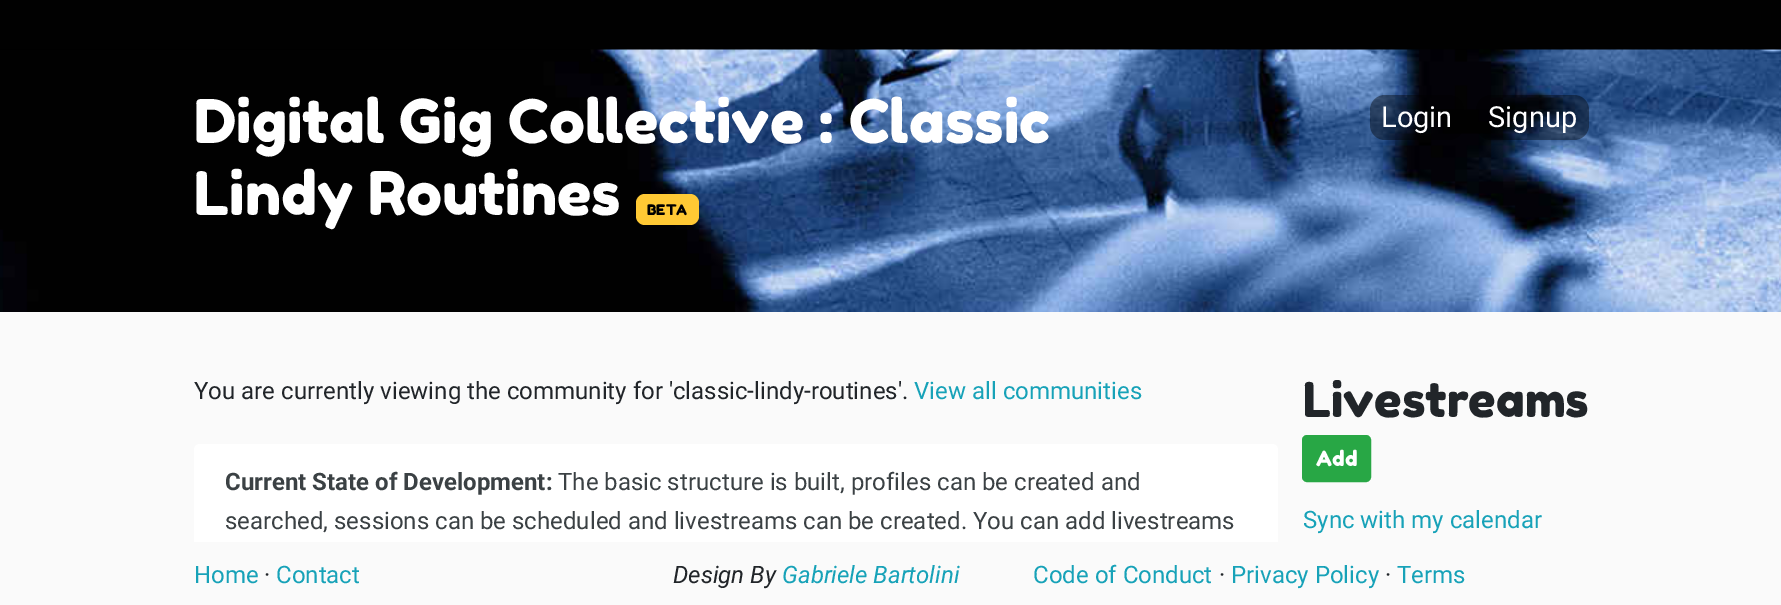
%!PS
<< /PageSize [1781 605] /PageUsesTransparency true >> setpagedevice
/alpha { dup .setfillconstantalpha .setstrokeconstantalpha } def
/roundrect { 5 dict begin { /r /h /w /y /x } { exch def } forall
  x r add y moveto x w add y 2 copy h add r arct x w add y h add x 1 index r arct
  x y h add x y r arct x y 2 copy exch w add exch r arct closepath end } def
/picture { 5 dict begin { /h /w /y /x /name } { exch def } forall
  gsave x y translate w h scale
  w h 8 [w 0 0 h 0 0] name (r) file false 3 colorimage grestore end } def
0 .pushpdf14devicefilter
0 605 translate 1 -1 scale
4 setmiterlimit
0.98 setgray
0 0 1781 605 rectfill
0.004 setgray
0 0 1781 50 rectfill
(img1.rgb) 0 49 1781 263 picture
/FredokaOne-Regular [60 0 0 -60 0 0] selectfont
1 setgray
194 143 moveto (Digital Gig Collective : Classic) show
194 215 moveto (Lindy Routines) show
1 0.788 0.204 setrgbcolor
636 194 63 31 9 roundrect fill
/FredokaOne-Regular [14.5 0 0 -14.5 0 0] selectfont
0 setgray
647 215 moveto (BETA) show
0.4 alpha
1370 95 94 45 15 roundrect fill
/Roboto-Regular [29 0 0 -29 0 0] selectfont
1 alpha
1 setgray
1381 127 moveto (Login) show
0.4 alpha
0 setgray
1476 95 113 45 15 roundrect fill
1 alpha
1 setgray
1488 127 moveto (Signup) show
/Roboto-Regular [24 0 0 -24 0 0] selectfont
0.129 0.145 0.161 setrgbcolor
194 399 moveto (You are currently viewing the community for 'classic-lindy-routines'.) show
0.09 0.635 0.722 setrgbcolor
914 399 moveto (View all communities) show
1 setgray
newpath 200 444 moveto 1272 444 lineto 1275.5 444 1278 446.5 1278 450 curveto 1278 542 lineto 194 542 lineto 194 450 lineto 194 446.5 196.5 444 200 444 curveto closepath fill
/Roboto-Bold [24 0 0 -24 0 0] selectfont
0.231 0.255 0.267 setrgbcolor
225 490 moveto (Current State of Development:) show
/Roboto-Regular [24 0 0 -24 0 0] selectfont
558 490 moveto (The basic structure is built, profiles can be created and) show
225 529 moveto (searched, sessions can be scheduled and livestreams can be created. You can add livestreams) show
/FredokaOne-Regular [48 0 0 -48 0 0] selectfont
0.129 0.145 0.161 setrgbcolor
1303 417 moveto (Livestreams) show
0.157 0.655 0.271 setrgbcolor
1303 436 67 45 4 roundrect gsave fill grestore
2 setlinewidth
stroke
/FredokaOne-Regular [21 0 0 -21 0 0] selectfont
1 setgray
1316 466 moveto (Add) show
/Roboto-Regular [24 0 0 -24 0 0] selectfont
0.09 0.635 0.722 setrgbcolor
1303 528 moveto (Sync with my calendar) show
194 583 moveto (Home) show
0.129 0.145 0.161 setrgbcolor
264 583 moveto (·) show
0.09 0.635 0.722 setrgbcolor
276 583 moveto (Contact) show
/Roboto-Italic [24 0 0 -24 0 0] selectfont
0.129 0.145 0.161 setrgbcolor
673 583 moveto (Design By) show
0.09 0.635 0.722 setrgbcolor
782 583 moveto (Gabriele Bartolini) show
/Roboto-Regular [24 0 0 -24 0 0] selectfont
1033 583 moveto (Code of Conduct) show
0.129 0.145 0.161 setrgbcolor
1219 583 moveto (·) show
0.09 0.635 0.722 setrgbcolor
1231 583 moveto (Privacy Policy) show
0.129 0.145 0.161 setrgbcolor
1385 583 moveto (·) show
0.09 0.635 0.722 setrgbcolor
1397 583 moveto (Terms) show
.poppdf14devicefilter showpage
